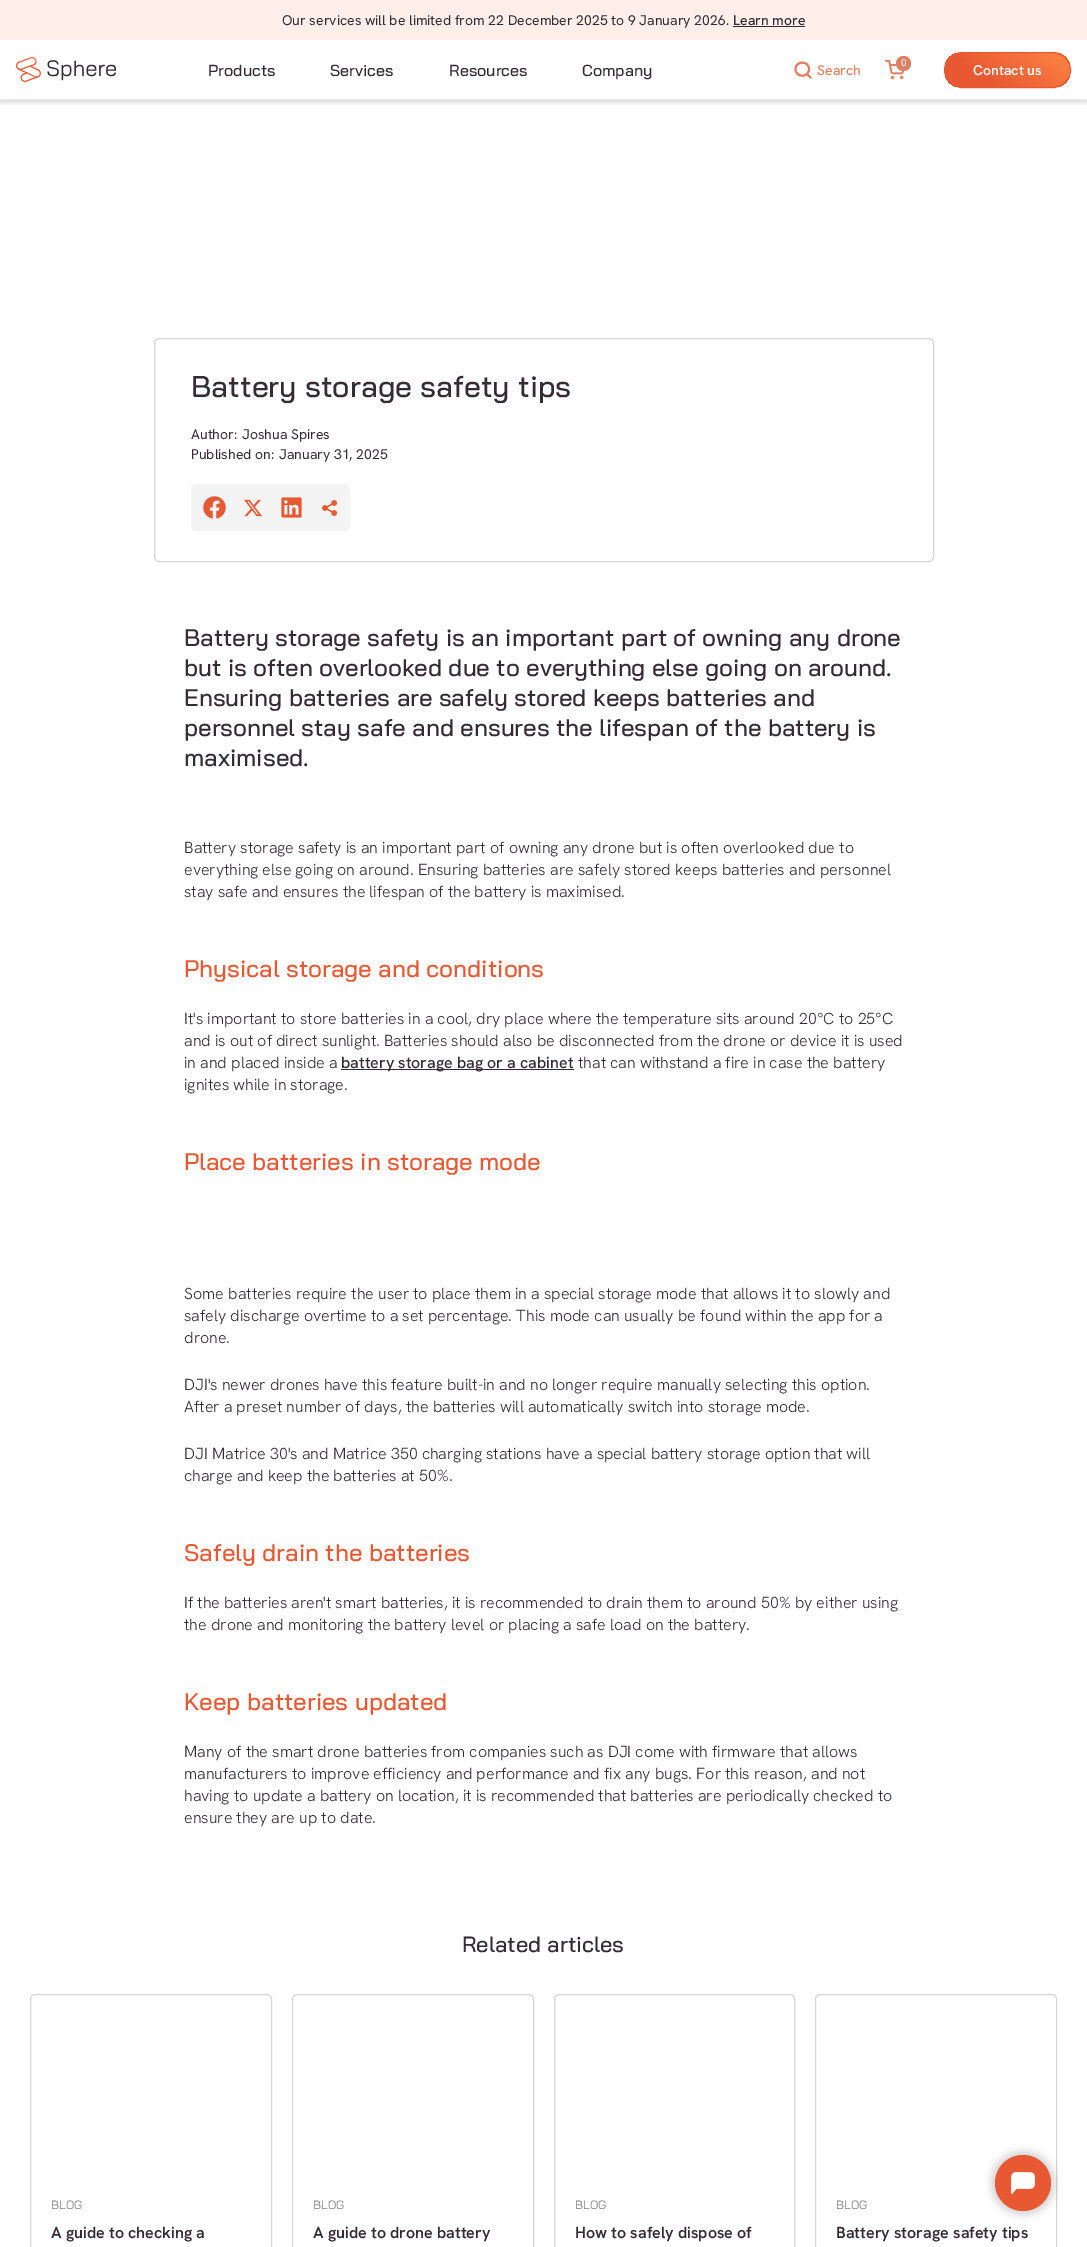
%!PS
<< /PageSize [1087 2247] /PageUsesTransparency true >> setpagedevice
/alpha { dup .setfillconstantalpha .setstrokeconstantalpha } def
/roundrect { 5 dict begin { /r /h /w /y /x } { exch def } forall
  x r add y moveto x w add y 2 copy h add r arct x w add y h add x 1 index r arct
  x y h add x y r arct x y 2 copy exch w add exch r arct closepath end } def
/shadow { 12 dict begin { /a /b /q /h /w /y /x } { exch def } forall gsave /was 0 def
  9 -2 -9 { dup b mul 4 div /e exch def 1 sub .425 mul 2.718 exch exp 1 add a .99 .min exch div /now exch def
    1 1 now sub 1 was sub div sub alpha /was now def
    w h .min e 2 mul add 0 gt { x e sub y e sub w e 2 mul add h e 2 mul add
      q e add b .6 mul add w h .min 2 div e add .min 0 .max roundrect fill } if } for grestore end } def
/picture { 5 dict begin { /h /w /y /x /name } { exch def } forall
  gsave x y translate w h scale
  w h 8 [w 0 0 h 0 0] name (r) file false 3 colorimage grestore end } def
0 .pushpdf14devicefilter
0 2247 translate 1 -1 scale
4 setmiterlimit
1 setgray
0 0 1087 2247 rectfill
gsave
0 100 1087 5 rectclip
0.2 0.173 0.192 setrgbcolor
0 2 1087 100 0 2.5 0.2 shadow
grestore
0.925 setgray
0 99 1087 1 rectfill
1 0.933 0.918 setrgbcolor
0 0 1087 40 rectfill
/HankenGrotesk-Regular [14 0 0 -14 0 0] selectfont
0.2 0.173 0.192 setrgbcolor
282 25 moveto (Our services will be limited from 22 December 2025 to 9 January 2026.) show
/HankenGrotesk-Medium [14 0 0 -14 0 0] selectfont
733 25 moveto (Learn more) show
733 26 72 1 rectfill
(img1.rgb) 16 57 100 25 picture
/BaiJamjuree-Medium [16 0 0 -16 0 0] selectfont
208 76 moveto (Products) show
330 76 moveto (Services) show
449 76 moveto (Resources) show
582 76 moveto (Company) show
(img2.rgb) 885 60 20 20 picture
0.871 0.502 0.392 setrgbcolor
newpath 903.5 63.5 7.5 0 360 arc closepath fill
/HankenGrotesk-Regular [10 0 0 -10 0 0] selectfont
1 setgray
901 66 moveto (0) show
0.871 0.502 0.392 setrgbcolor
2 setlinewidth
1 setlinecap
1 setlinejoin
newpath 810.5 77.5 moveto 807 74 lineto 809 69 moveto 809 78 795.5 78 795.5 69 curveto 795.5 60.5 809 60.5 809 69 curveto closepath stroke
/HankenGrotesk-Medium [14 0 0 -14 0 0] selectfont
817 75 moveto (Search) show
gsave
944 52 127 36 18 roundrect clip newpath
gsave newpath 945 53 moveto 1070 53 lineto 1070 87 lineto 945 87 lineto closepath clip newpath
<< /ShadingType 2 /ColorSpace /DeviceRGB /Coords [979 111 1036 29] /Extend [true true] /Function << /FunctionType 3 /Domain [0 1] /Functions [<< /FunctionType 2 /Domain [0 1] /C0 [0.91 0.345 0.2] /C1 [0.91 0.345 0.2] /N 1 >> << /FunctionType 2 /Domain [0 1] /C0 [0.91 0.345 0.2] /C1 [1 0.522 0.263] /N 1 >>] /Bounds [0.3] /Encode [0 1 0 1] >> >> shfill grestore
grestore
0.91 0.345 0.2 setrgbcolor
1 setlinewidth
0 setlinecap
0 setlinejoin
944.5 52.5 126 35 17.5 roundrect stroke
/HankenGrotesk-SemiBold [14 0 0 -14 0 0] selectfont
1 setgray
973 75 moveto (Contact us) show
0.835 setgray
154.5 338.5 779 223 4.5 roundrect stroke
/BaiJamjuree-Medium [30 0 0 -30 0 0] selectfont
0.2 0.173 0.192 setrgbcolor
191 397 moveto (Battery storage safety tips) show
/HankenGrotesk-Regular [14 0 0 -14 0 0] selectfont
191 439 moveto (Author:) show
242 439 moveto (Joshua Spires) show
191 459 moveto (Published on:) show
279 459 moveto (January 31, 2025) show
0.957 setgray
191 484 159 47 5 roundrect fill
(img3.rgb) 203 496 23 23 picture
(img4.rgb) 244 499 18 18 picture
(img5.rgb) 281 497 21 21 picture
(img6.rgb) 322 500 15 16 picture
/BaiJamjuree-Medium [24 0 0 -24 0 0] selectfont
0.2 0.173 0.192 setrgbcolor
184 646 moveto (Battery storage safety is an important part of owning any drone) show
184 676 moveto (but is often overlooked due to everything else going on around.) show
184 706 moveto (Ensuring batteries are safely stored keeps batteries and) show
184 736 moveto (personnel stay safe and ensures the lifespan of the battery is) show
184 766 moveto (maximised.) show
/HankenGrotesk-Light [16 0 0 -16 0 0] selectfont
184 853 moveto (Battery storage safety is an important part of owning any drone but is often overlooked due to) show
184 875 moveto (everything else going on around. Ensuring batteries are safely stored keeps batteries and personnel) show
184 897 moveto (stay safe and ensures the lifespan of the battery is maximised.) show
/BaiJamjuree-Medium [24 0 0 -24 0 0] selectfont
0.91 0.345 0.2 setrgbcolor
184 977 moveto (Physical storage and conditions) show
/HankenGrotesk-Light [16 0 0 -16 0 0] selectfont
0.2 0.173 0.192 setrgbcolor
184 1024 moveto (It's important to store batteries in a cool, dry place where the temperature sits around 20°C to 25°C) show
184 1046 moveto (and is out of direct sunlight. Batteries should also be disconnected from the drone or device it is used) show
184 1068 moveto (in and placed inside a) show
341 1069 233 1 rectfill
/HankenGrotesk-Medium [16 0 0 -16 0 0] selectfont
341 1068 moveto (battery storage bag or a cabinet) show
/HankenGrotesk-Light [16 0 0 -16 0 0] selectfont
578 1068 moveto (that can withstand a fire in case the battery) show
184 1090 moveto (ignites while in storage.) show
/BaiJamjuree-Medium [24 0 0 -24 0 0] selectfont
0.91 0.345 0.2 setrgbcolor
184 1170 moveto (Place batteries in storage mode) show
/HankenGrotesk-Light [16 0 0 -16 0 0] selectfont
0.2 0.173 0.192 setrgbcolor
184 1299 moveto (Some batteries require the user to place them in a special storage mode that allows it to slowly and) show
184 1321 moveto (safely discharge overtime to a set percentage. This mode can usually be found within the app for a) show
184 1343 moveto (drone.) show
184 1390 moveto (DJI's newer drones have this feature built-in and no longer require manually selecting this option.) show
184 1412 moveto (After a preset number of days, the batteries will automatically switch into storage mode.) show
184 1459 moveto (DJI Matrice 30's and Matrice 350 charging stations have a special battery storage option that will) show
184 1481 moveto (charge and keep the batteries at 50%.) show
/BaiJamjuree-Medium [24 0 0 -24 0 0] selectfont
0.91 0.345 0.2 setrgbcolor
184 1561 moveto (Safely drain the batteries) show
/HankenGrotesk-Light [16 0 0 -16 0 0] selectfont
0.2 0.173 0.192 setrgbcolor
184 1608 moveto (If the batteries aren't smart batteries, it is recommended to drain them to around 50% by either using) show
184 1630 moveto (the drone and monitoring the battery level or placing a safe load on the battery.) show
/BaiJamjuree-Medium [24 0 0 -24 0 0] selectfont
0.91 0.345 0.2 setrgbcolor
184 1710 moveto (Keep batteries updated) show
/HankenGrotesk-Light [16 0 0 -16 0 0] selectfont
0.2 0.173 0.192 setrgbcolor
184 1757 moveto (Many of the smart drone batteries from companies such as DJI come with firmware that allows) show
184 1779 moveto (manufacturers to improve efficiency and performance and fix any bugs. For this reason, and not) show
184 1801 moveto (having to update a battery on location, it is recommended that batteries are periodically checked to) show
184 1823 moveto (ensure they are up to date.) show
/BaiJamjuree-Medium [22 0 0 -22 0 0] selectfont
462 1952 moveto (Related articles) show
0.835 setgray
30.5 1994.5 241 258 4.5 roundrect stroke
/BaiJamjuree-Regular [12 0 0 -12 0 0] selectfont
0.514 0.506 0.51 setrgbcolor
51 2209 moveto (BLOG) show
/HankenGrotesk-SemiBold [16 0 0 -16 0 0] selectfont
0.2 0.173 0.192 setrgbcolor
51 2238 moveto (A guide to checking a) show
0.835 setgray
292.5 1994.5 241 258 4.5 roundrect stroke
/BaiJamjuree-Regular [12 0 0 -12 0 0] selectfont
0.514 0.506 0.51 setrgbcolor
313 2209 moveto (BLOG) show
/HankenGrotesk-SemiBold [16 0 0 -16 0 0] selectfont
0.2 0.173 0.192 setrgbcolor
313 2238 moveto (A guide to drone battery) show
0.835 setgray
554.5 1994.5 240 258 4.5 roundrect stroke
/BaiJamjuree-Regular [12 0 0 -12 0 0] selectfont
0.514 0.506 0.51 setrgbcolor
575 2209 moveto (BLOG) show
/HankenGrotesk-SemiBold [16 0 0 -16 0 0] selectfont
0.2 0.173 0.192 setrgbcolor
575 2238 moveto (How to safely dispose of) show
0.835 setgray
815.5 1994.5 241 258 4.5 roundrect stroke
/BaiJamjuree-Regular [12 0 0 -12 0 0] selectfont
0.514 0.506 0.51 setrgbcolor
836 2209 moveto (BLOG) show
/HankenGrotesk-SemiBold [16 0 0 -16 0 0] selectfont
0.2 0.173 0.192 setrgbcolor
836 2238 moveto (Battery storage safety tips) show
0 setgray
991 2151 64 64 32 4 0.16 shadow
0.91 0.345 0.2 setrgbcolor
newpath 1023 2183 28 0 360 arc closepath fill
(img7.rgb) 1011 2172 24 22 picture
.poppdf14devicefilter showpage
